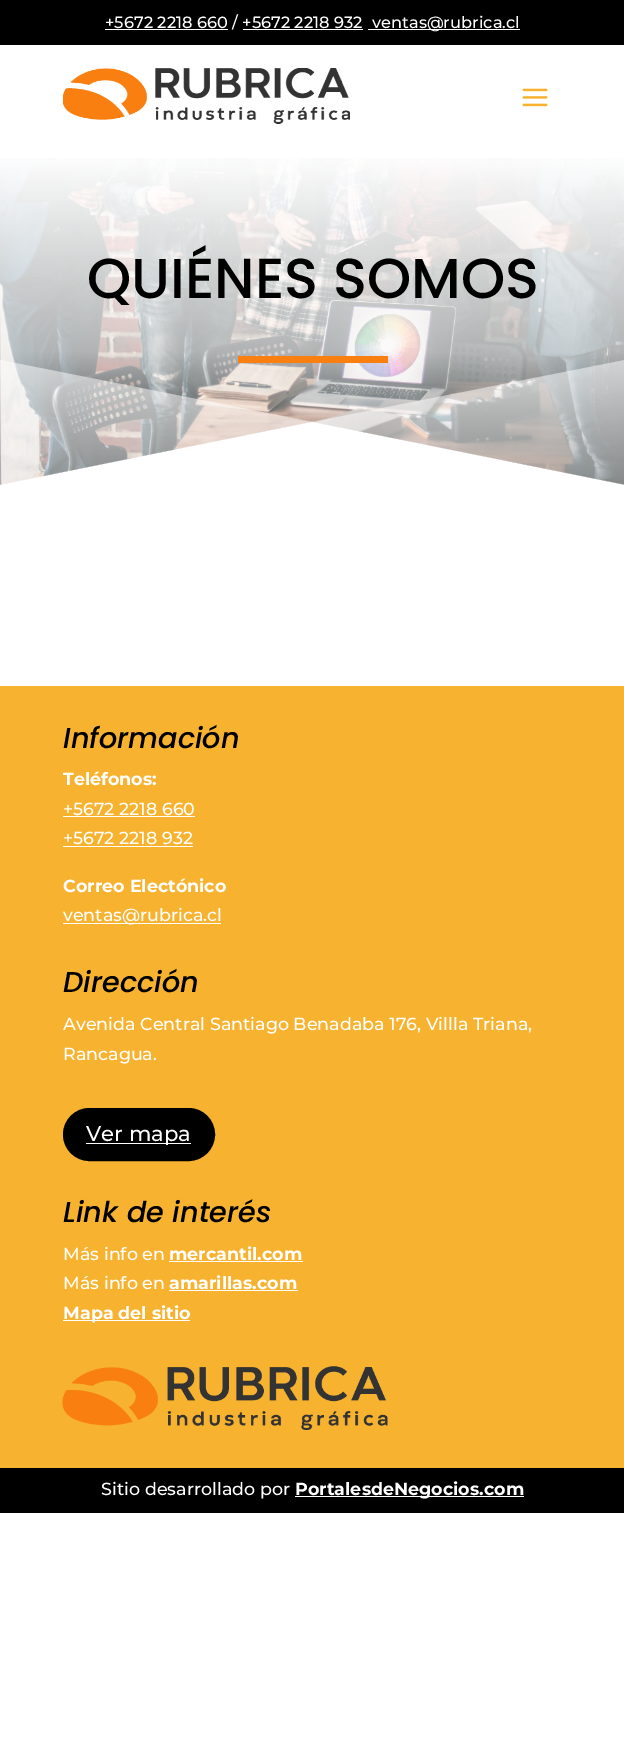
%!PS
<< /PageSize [624 1745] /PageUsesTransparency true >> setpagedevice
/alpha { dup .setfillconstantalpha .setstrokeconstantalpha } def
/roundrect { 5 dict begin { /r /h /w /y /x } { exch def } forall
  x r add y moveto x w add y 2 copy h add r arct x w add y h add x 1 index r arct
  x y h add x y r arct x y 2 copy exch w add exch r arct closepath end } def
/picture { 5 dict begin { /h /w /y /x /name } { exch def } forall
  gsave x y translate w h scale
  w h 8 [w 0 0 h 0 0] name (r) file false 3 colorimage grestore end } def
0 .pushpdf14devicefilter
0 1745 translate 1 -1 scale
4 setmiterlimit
1 setgray
0 0 624 1745 rectfill
0 setgray
0 0 624 45 rectfill
1 setgray
105 29 123 1 rectfill
/Montserrat-Medium [16.25 0 0 -16.25 0 0] selectfont
105 28 moveto (+5672 2218 660 / +5672 2218 932) show
368 29 152 1 rectfill
372 28 moveto (ventas@rubrica.cl) show
243 29 120 1 rectfill
(img1.rgb) 63 68 287 56 picture
(img2.rgb) 522 88 26 19 picture
(img3.rgb) 0 158 624 327 picture
/Poppins-Medium [56.25 0 0 -56.25 0 0] selectfont
0 setgray
87 298 moveto (QUIÉNES SOMOS) show
0.5 alpha
1 setgray
newpath 0 485 moveto 312 422 lineto 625 485 lineto 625 360 lineto 312 422 lineto 0 360 lineto closepath fill
1 alpha
0.973 0.498 0.063 setrgbcolor
238 356 150 7 rectfill
1 setgray
newpath 0 485 moveto 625 485 lineto 312 422 lineto closepath fill
0.969 0.702 0.184 setrgbcolor
0 686 624 782 rectfill
/Poppins-MediumItalic [28.75 0 0 -28.75 0 0] selectfont
0 setgray
63 748 moveto (Información) show
/Montserrat-Bold [17.5 0 0 -17.5 0 0] selectfont
1 setgray
63 785 moveto (Teléfonos:) show
/Montserrat-Medium [17.5 0 0 -17.5 0 0] selectfont
63 815 moveto (+5672 2218 660) show
63 816 132 1 rectfill
63 844 moveto (+5672 2218 932) show
63 846 130 1 rectfill
/Montserrat-Bold [17.5 0 0 -17.5 0 0] selectfont
63 892 moveto (Correo Electónico) show
63 923 158 1 rectfill
/Montserrat-Medium [17.5 0 0 -17.5 0 0] selectfont
63 921 moveto (ventas@rubrica.cl) show
/Poppins-MediumItalic [28.75 0 0 -28.75 0 0] selectfont
0 setgray
63 992 moveto (Dirección) show
/Montserrat-Medium [17.5 0 0 -17.5 0 0] selectfont
1 setgray
63 1030 moveto (Avenida Central Santiago Benadaba 176, Villla Triana,) show
63 1060 moveto (Rancagua.) show
0 setgray
64.5 1109.5 149 50 25 roundrect gsave fill grestore
3 setlinewidth
stroke
1 setgray
86 1143 105 1 rectfill
/Montserrat-Medium [21.25 0 0 -21.25 0 0] selectfont
86 1141 moveto (Ver mapa) show
/Poppins-MediumItalic [28.75 0 0 -28.75 0 0] selectfont
0 setgray
63 1222 moveto (Link de interés) show
/Montserrat-Medium [17.5 0 0 -17.5 0 0] selectfont
1 setgray
63 1260 moveto (Más info en) show
/Montserrat-Bold [17.5 0 0 -17.5 0 0] selectfont
169 1260 moveto (mercantil.com) show
169 1261 134 1 rectfill
/Montserrat-Medium [17.5 0 0 -17.5 0 0] selectfont
63 1289 moveto (Más info en) show
/Montserrat-Bold [17.5 0 0 -17.5 0 0] selectfont
169 1289 moveto (amarillas.com) show
169 1290 129 1 rectfill
63 1320 127 1 rectfill
63 1319 moveto (Mapa del sitio) show
(img4.rgb) 62 1366 326 64 picture
0 setgray
0 1468 624 45 rectfill
/Montserrat-Medium [17.5 0 0 -17.5 0 0] selectfont
1 setgray
101 1495 moveto (Sitio desarrollado por) show
295 1496 229 1 rectfill
/Montserrat-Bold [17.5 0 0 -17.5 0 0] selectfont
295 1495 moveto (PortalesdeNegocios.com) show
.poppdf14devicefilter showpage
